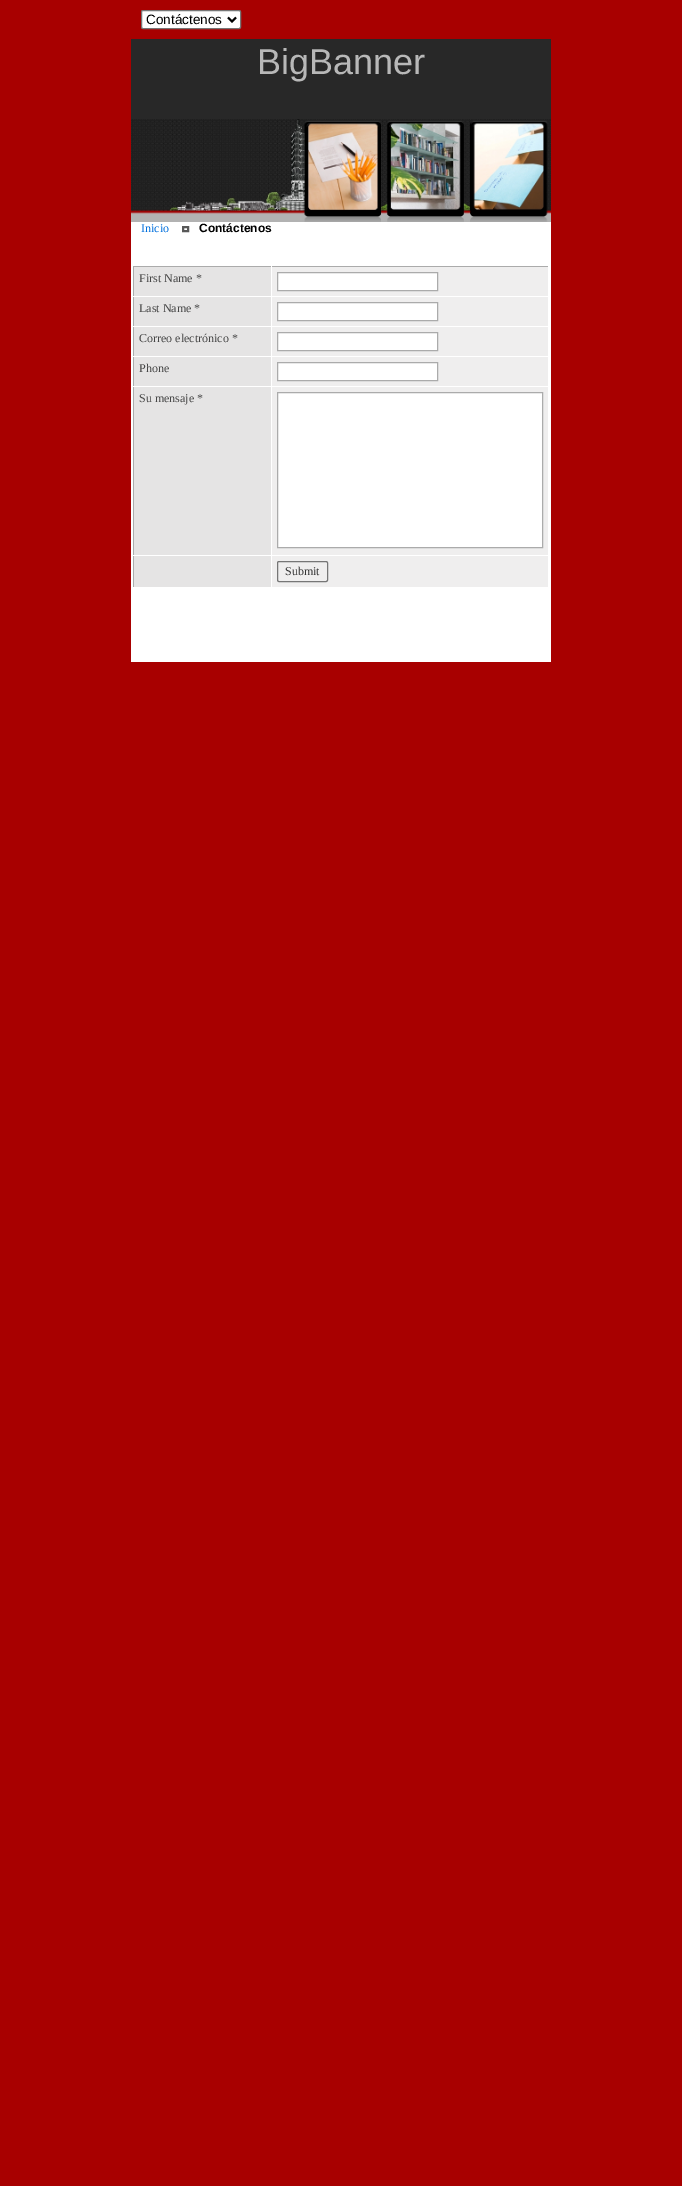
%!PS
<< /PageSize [682 2186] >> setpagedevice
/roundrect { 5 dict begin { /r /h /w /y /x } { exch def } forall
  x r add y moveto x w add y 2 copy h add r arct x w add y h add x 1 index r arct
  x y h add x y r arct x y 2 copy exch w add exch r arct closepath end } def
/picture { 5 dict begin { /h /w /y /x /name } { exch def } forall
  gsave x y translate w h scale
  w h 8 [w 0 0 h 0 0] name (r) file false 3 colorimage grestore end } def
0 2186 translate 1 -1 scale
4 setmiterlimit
0.659 0 0 setrgbcolor
0 0 682 2186 rectfill
1 setgray
141.5 10.5 99 18 1.5 roundrect gsave fill grestore
0.463 setgray
stroke
0 setgray
2 setlinewidth
newpath 228 17.5 moveto 232 21.5 lineto 236 17.5 lineto stroke
/LiberationSans-Regular [13.5 0 0 -13.5 0 0] selectfont
146 24 moveto (Contáctenos) show
0.157 setgray
131 39 420 80 rectfill
/LiberationSans-Regular [36 0 0 -36 0 0] selectfont
0.722 setgray
257 74 moveto (BigBanner) show
(img1.rgb) 131 119 420 103 picture
1 setgray
131 222 420 440 rectfill
/LiberationSerif-Regular [12 0 0 -12 0 0] selectfont
0 0.435 0.867 setrgbcolor
141 232 moveto (Inicio) show
0.345 setgray
183 227 5 4 rectstroke
/LiberationSans-Bold [12 0 0 -12 0 0] selectfont
0 setgray
199 232 moveto (Contáctenos) show
0.671 setgray
133 266 416 1 rectfill
133 266 1 322 rectfill
0.898 0.894 0.894 setrgbcolor
134 267 137 29 rectfill
1 setgray
271 266 1 1 rectfill
133 296 1 1 rectfill
/LiberationSerif-Regular [12 0 0 -12 0 0] selectfont
0.275 setgray
139 282 moveto (First Name *) show
0.937 0.933 0.933 setrgbcolor
272 267 276 29 rectfill
1 setgray
548 266 1 1 rectfill
newpath 277.5 272.5 moveto 437.5 272.5 lineto 437.5 290.5 lineto 277.5 290.5 lineto closepath gsave fill grestore
0.671 setgray
1 setlinewidth
stroke
0.937 0.933 0.933 setrgbcolor
272 297 276 29 rectfill
0.898 0.894 0.894 setrgbcolor
134 297 137 29 rectfill
1 setgray
133 326 1 1 rectfill
0.275 setgray
139 312 moveto (Last Name *) show
1 setgray
newpath 277.5 302.5 moveto 437.5 302.5 lineto 437.5 320.5 lineto 277.5 320.5 lineto closepath gsave fill grestore
0.671 setgray
stroke
0.898 0.894 0.894 setrgbcolor
134 327 137 29 rectfill
1 setgray
133 356 1 1 rectfill
0.275 setgray
139 342 moveto (Correo electrónico *) show
0.937 0.933 0.933 setrgbcolor
272 327 276 29 rectfill
1 setgray
newpath 277.5 332.5 moveto 437.5 332.5 lineto 437.5 350.5 lineto 277.5 350.5 lineto closepath gsave fill grestore
0.671 setgray
stroke
0.937 0.933 0.933 setrgbcolor
272 357 276 29 rectfill
0.898 0.894 0.894 setrgbcolor
134 357 137 29 rectfill
1 setgray
133 386 1 1 rectfill
0.275 setgray
139 372 moveto (Phone) show
1 setgray
newpath 277.5 362.5 moveto 437.5 362.5 lineto 437.5 380.5 lineto 277.5 380.5 lineto closepath gsave fill grestore
0.671 setgray
stroke
0.898 0.894 0.894 setrgbcolor
134 387 137 168 rectfill
1 setgray
133 555 1 1 rectfill
0.275 setgray
139 402 moveto (Su mensaje *) show
0.937 0.933 0.933 setrgbcolor
272 387 276 168 rectfill
1 setgray
newpath 277.5 392.5 moveto 542.5 392.5 lineto 542.5 547.5 lineto 277.5 547.5 lineto closepath gsave fill grestore
0.671 setgray
stroke
0.937 0.933 0.933 setrgbcolor
272 556 276 31 rectfill
0.898 0.894 0.894 setrgbcolor
134 556 137 31 rectfill
1 setgray
133 587 1 1 rectfill
0.463 setgray
277.5 561.5 50 20 1.5 roundrect stroke
0.2 setgray
285 575 moveto (Submit) show
showpage
